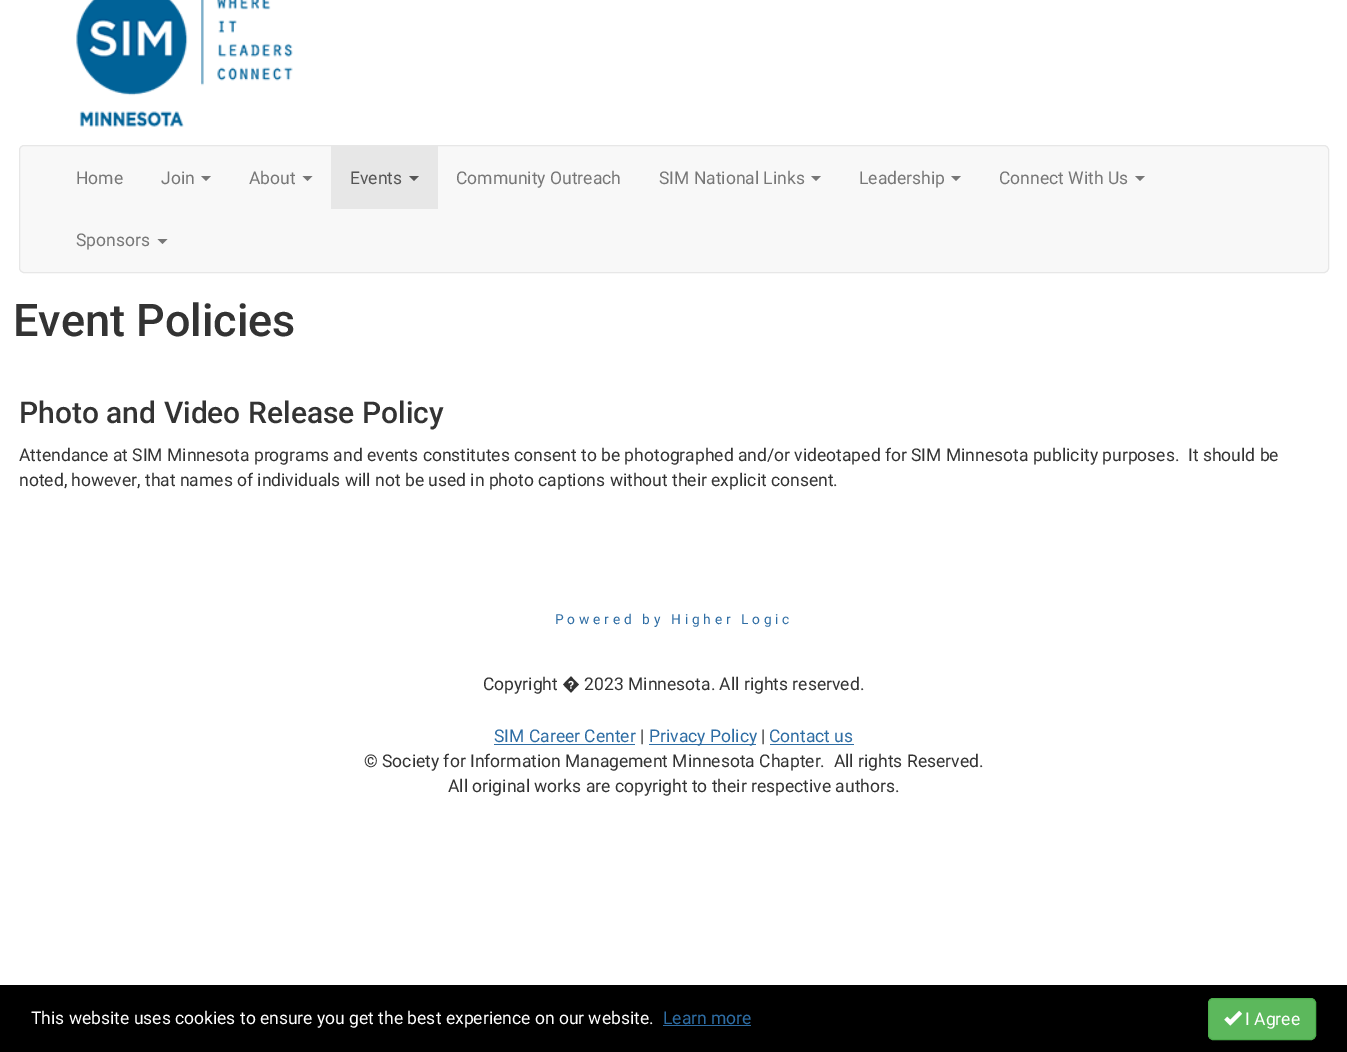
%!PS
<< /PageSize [1347 1052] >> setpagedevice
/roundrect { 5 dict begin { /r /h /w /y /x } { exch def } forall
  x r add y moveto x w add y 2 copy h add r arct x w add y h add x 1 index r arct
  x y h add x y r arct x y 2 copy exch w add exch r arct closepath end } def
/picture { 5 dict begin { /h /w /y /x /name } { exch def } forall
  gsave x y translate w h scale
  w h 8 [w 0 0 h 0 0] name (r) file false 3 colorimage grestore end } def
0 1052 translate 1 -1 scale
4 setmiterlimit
1 setgray
0 0 1347 1052 rectfill
(img1.rgb) 76 0 217 127 picture
0.973 setgray
19.5 145.5 1309 127 4.5 roundrect gsave fill grestore
0.906 setgray
stroke
/Roboto-Regular [17.5 0 0 -17.5 0 0] selectfont
0.467 setgray
76 184 moveto (Home) show
161 184 moveto (Join) show
newpath 201 176 moveto 211 176 lineto 206 181 lineto closepath fill
249 184 moveto (About) show
newpath 302.5 176 moveto 312.5 176 lineto 307.5 181 lineto closepath fill
0.906 setgray
331 146 107 63 rectfill
0.333 setgray
350 184 moveto (Events) show
newpath 409 176 moveto 419 176 lineto 414 181 lineto closepath fill
0.467 setgray
456 184 moveto (Community Outreach) show
659 184 moveto (SIM National Links) show
newpath 811 176 moveto 821 176 lineto 816 181 lineto closepath fill
859 184 moveto (Leadership) show
newpath 951 176 moveto 961 176 lineto 956 181 lineto closepath fill
999 184 moveto (Connect With Us) show
newpath 1135 176 moveto 1145 176 lineto 1140 181 lineto closepath fill
76 246 moveto (Sponsors) show
newpath 157.5 239 moveto 167.5 239 lineto 162.5 244 lineto closepath fill
/Roboto-Medium [45 0 0 -45 0 0] selectfont
0.2 setgray
13 336 moveto (Event Policies) show
/Roboto-Medium [30 0 0 -30 0 0] selectfont
19 423 moveto (Photo and Video Release Policy) show
/Roboto-Regular [17.5 0 0 -17.5 0 0] selectfont
19 461 moveto (Attendance at SIM Minnesota programs and events constitutes consent to be photographed and/or videotaped for SIM Minnesota publicity purposes.  It should be) show
19 486 moveto (noted, however, that names of individuals will not be used in photo captions without their explicit consent.) show
/Roboto-Regular [13.75 0 0 -13.75 0 0] selectfont
0.18 0.427 0.643 setrgbcolor
555 624 moveto 3.75 0 (Powered by Higher Logic) ashow
0 setgray
0 985 1347 67 rectfill
/Roboto-Regular [17.5 0 0 -17.5 0 0] selectfont
1 setgray
31 1024 moveto (This website uses cookies to ensure you get the best experience on our website.) show
0.18 0.427 0.643 setrgbcolor
663 1024 moveto (Learn more) show
663 1025 88 1 rectfill
0.361 0.722 0.361 setrgbcolor
1208.5 998.5 107 41 4.5 roundrect gsave fill grestore
0.298 0.682 0.298 setrgbcolor
stroke
(img2.rgb) 1224 1010 18 16 picture
1 setgray
1245 1025 moveto (I Agree) show
0.2 setgray
483 690 moveto (Copyright � 2023 Minnesota. All rights reserved.) show
0.18 0.427 0.643 setrgbcolor
494 742 moveto (SIM Career Center) show
494 744 141 1 rectfill
0.2 setgray
640 742 moveto (|) show
0.18 0.427 0.643 setrgbcolor
649 744 107 1 rectfill
649 742 moveto (Privacy Policy) show
0.2 setgray
761 742 moveto (|) show
0.18 0.427 0.643 setrgbcolor
769 742 moveto (Contact us) show
770 744 84 1 rectfill
0.2 setgray
364 767 moveto (© Society for Information Management Minnesota Chapter.  All rights Reserved.) show
448 792 moveto (All original works are copyright to their respective authors.) show
showpage
